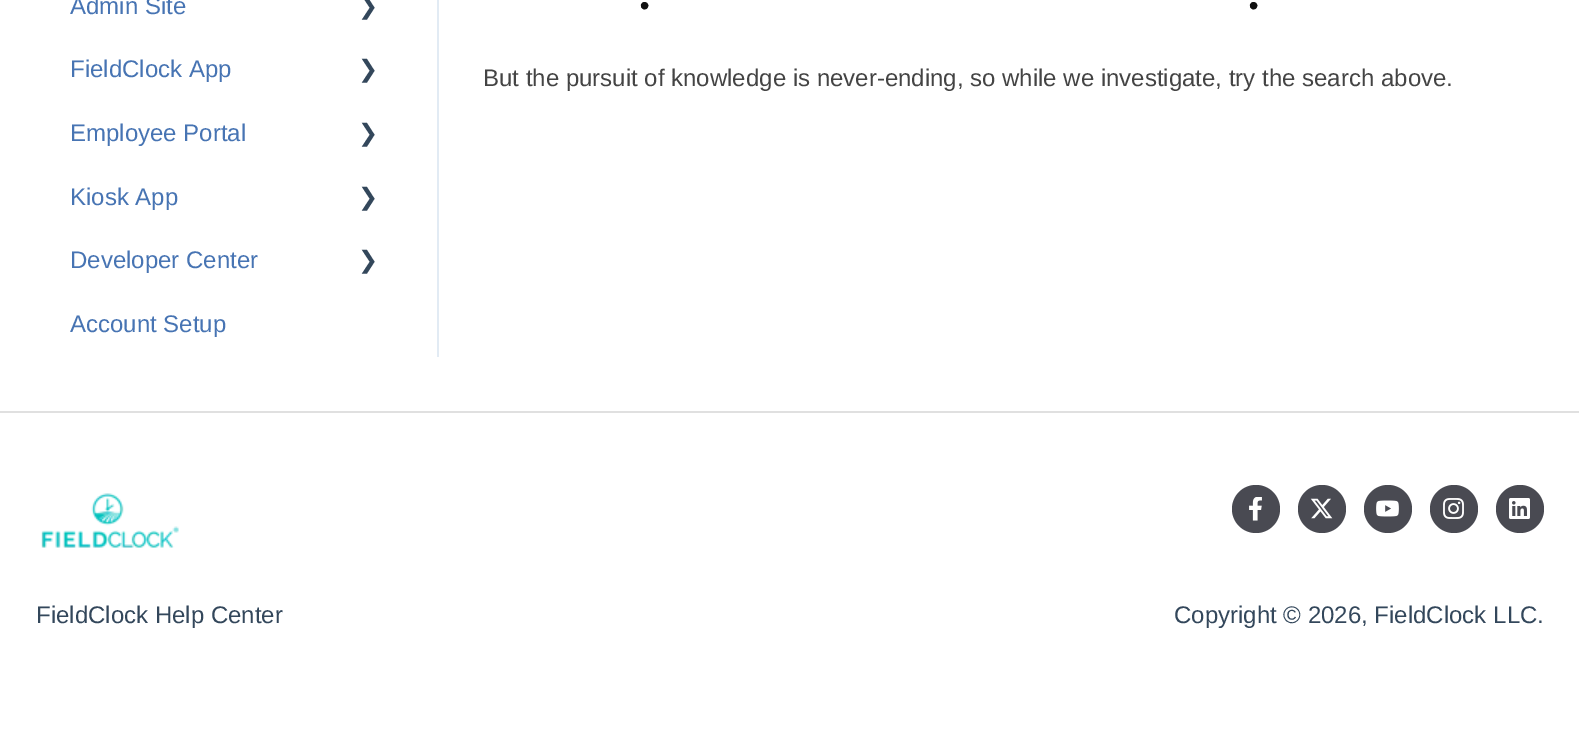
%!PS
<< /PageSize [1579 737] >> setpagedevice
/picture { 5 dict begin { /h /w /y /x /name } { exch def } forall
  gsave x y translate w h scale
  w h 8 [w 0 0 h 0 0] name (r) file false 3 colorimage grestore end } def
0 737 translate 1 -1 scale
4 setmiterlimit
1 setgray
0 0 1579 737 rectfill
0.886 0.922 0.957 setrgbcolor
437 0 2 357 rectfill
/LiberationSans-Regular [24 0 0 -24 0 0] selectfont
0.278 0.455 0.702 setrgbcolor
70 14 moveto (Admin Site) show
/DejaVuSans-Regular [24 0 0 -24 0 0] selectfont
0.2 0.278 0.357 setrgbcolor
358 14 moveto (❯) show
/LiberationSans-Regular [24 0 0 -24 0 0] selectfont
0.278 0.455 0.702 setrgbcolor
70 77 moveto (FieldClock App) show
/DejaVuSans-Regular [24 0 0 -24 0 0] selectfont
0.2 0.278 0.357 setrgbcolor
358 77 moveto (❯) show
/LiberationSans-Regular [24 0 0 -24 0 0] selectfont
0.278 0.455 0.702 setrgbcolor
70 141 moveto (Employee Portal) show
/DejaVuSans-Regular [24 0 0 -24 0 0] selectfont
0.2 0.278 0.357 setrgbcolor
358 141 moveto (❯) show
/LiberationSans-Regular [24 0 0 -24 0 0] selectfont
0.278 0.455 0.702 setrgbcolor
70 205 moveto (Kiosk App) show
/DejaVuSans-Regular [24 0 0 -24 0 0] selectfont
0.2 0.278 0.357 setrgbcolor
358 205 moveto (❯) show
/LiberationSans-Regular [24 0 0 -24 0 0] selectfont
0.278 0.455 0.702 setrgbcolor
70 268 moveto (Developer Center) show
/DejaVuSans-Regular [24 0 0 -24 0 0] selectfont
0.2 0.278 0.357 setrgbcolor
358 268 moveto (❯) show
/LiberationSans-Regular [24 0 0 -24 0 0] selectfont
0.278 0.455 0.702 setrgbcolor
70 332 moveto (Account Setup) show
/Inter-SemiBold [48 0 0 -48 0 0] selectfont
0.067 setgray
637 9 moveto (.) show
1246 9 moveto (.) show
/LiberationSans-Regular [24 0 0 -24 0 0] selectfont
0.267 setgray
483 86 moveto (But the pursuit of knowledge is never-ending, so while we investigate, try the search above.) show
0.878 setgray
0 411 1579 2 rectfill
(img1.rgb) 41 493 138 55 picture
0.2 0.278 0.357 setrgbcolor
36 623 moveto (FieldClock Help Center) show
0.286 0.29 0.322 setrgbcolor
newpath 1256 509 24 0 360 arc closepath fill
(img2.rgb) 1249 497 13 24 picture
newpath 1322 509 24 0 360 arc closepath fill
(img3.rgb) 1310 498 23 21 picture
newpath 1388 509 24 0 360 arc closepath fill
(img4.rgb) 1376 500 23 17 picture
newpath 1454 509 24 0 360 arc closepath fill
(img5.rgb) 1443 498 21 21 picture
newpath 1520 509 24 0 360 arc closepath fill
(img6.rgb) 1509 498 21 21 picture
0.2 0.278 0.357 setrgbcolor
1174 623 moveto (Copyright © 2026, FieldClock LLC.) show
showpage
